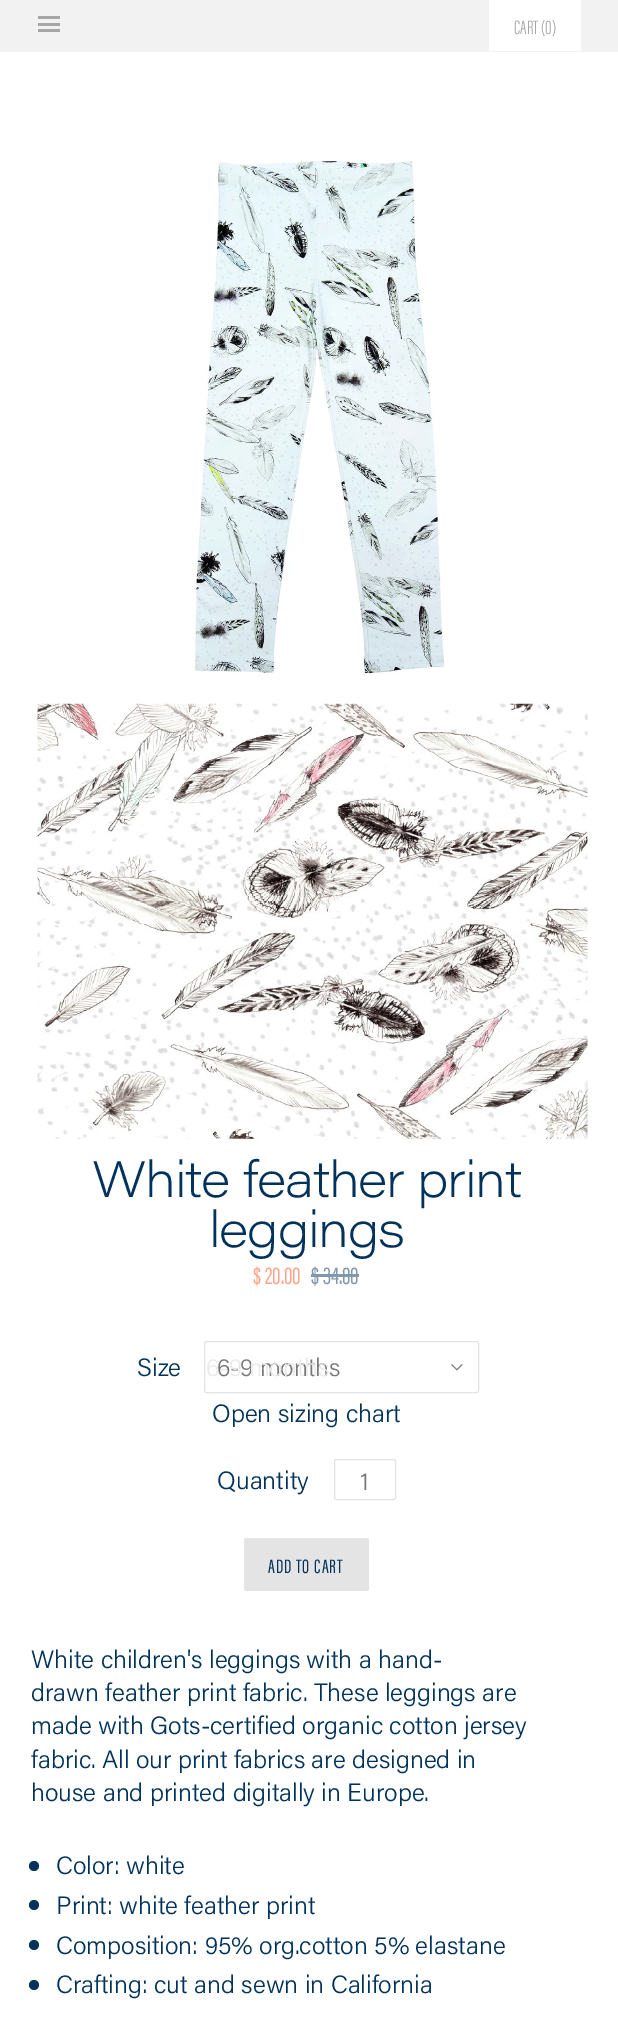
%!PS
<< /PageSize [618 2021] >> setpagedevice
/roundrect { 5 dict begin { /r /h /w /y /x } { exch def } forall
  x r add y moveto x w add y 2 copy h add r arct x w add y h add x 1 index r arct
  x y h add x y r arct x y 2 copy exch w add exch r arct closepath end } def
/picture { 5 dict begin { /h /w /y /x /name } { exch def } forall
  gsave x y translate w h scale
  w h 8 [w 0 0 h 0 0] name (r) file false 3 colorimage grestore end } def
0 2021 translate 1 -1 scale
4 setmiterlimit
1 setgray
0 0 618 2021 rectfill
0.949 setgray
0 0 618 52 rectfill
0.651 setgray
38 23 22 3 rectfill
38 16 22 3 rectfill
38 29 22 3 rectfill
1 setgray
489 0 92 51 rectfill
/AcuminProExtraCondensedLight-Light [20 0 0 -20 0 0] selectfont
0.651 setgray
514 34 moveto (CART \(0\)) show
(img1.rgb) 194 159 251 516 picture
(img2.rgb) 37 703 551 436 picture
/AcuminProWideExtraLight-ExtraLight [50 0 0 -50 0 0] selectfont
0 0.196 0.357 setrgbcolor
92 1197 moveto -1.25 0 (White feather print) ashow
209 1247 moveto -1.25 0 (leggings) ashow
/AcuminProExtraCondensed-Regular [25 0 0 -25 0 0] selectfont
1 0.643 0.541 setrgbcolor
253 1284 moveto ($ 20.00) show
0.498 0.596 0.678 setrgbcolor
311 1284 moveto ($ 34.00) show
311 1274 48 3 rectfill
/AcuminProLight-Light [25 0 0 -25 0 0] selectfont
0 0.196 0.357 setrgbcolor
137 1376 moveto (Size) show
0.89 setgray
204.5 1341.5 274 51 2 roundrect stroke
0.471 setgray
217 1376 moveto (6-9 months) show
0.918 setgray
206 1376 moveto (6-9 months) show
(img3.rgb) 451 1364 12 7 picture
0 0.196 0.357 setrgbcolor
212 1422 moveto (Open sizing chart) show
217 1489 moveto (Quantity) show
0.89 setgray
334.5 1459.5 61 40 2 roundrect stroke
0.471 setgray
360 1490 moveto (1) show
0.894 setgray
244 1538 125 53 2.5 roundrect fill
/AcuminProExtraCondensed-Regular [20 0 0 -20 0 0] selectfont
0 0.196 0.357 setrgbcolor
268 1573 moveto 1 0 (ADD TO CART) ashow
/AcuminProLight-Light [25 0 0 -25 0 0] selectfont
31 1668 moveto (White children's leggings with a hand-) show
31 1701 moveto (drawn feather print fabric. These leggings are) show
31 1734 moveto (made with Gots-certified organic cotton jersey) show
31 1768 moveto (fabric. All our print fabrics are designed in) show
31 1801 moveto (house and printed digitally in Europe.) show
newpath 34 1866 5 0 360 arc closepath fill
56 1874 moveto (Color: white) show
newpath 34 1905 5 0 360 arc closepath fill
56 1914 moveto (Print: white feather print) show
newpath 34 1945 5 0 360 arc closepath fill
56 1954 moveto (Composition: 95% org.cotton 5% elastane) show
newpath 34 1985 5 0 360 arc closepath fill
56 1993 moveto (Crafting: cut and sewn in California) show
showpage
